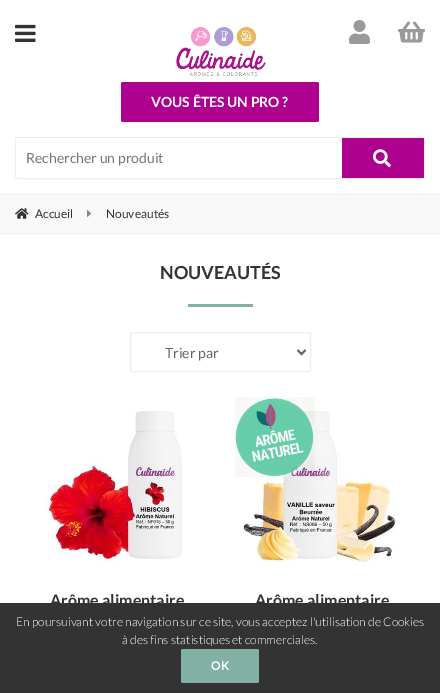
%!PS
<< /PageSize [440 693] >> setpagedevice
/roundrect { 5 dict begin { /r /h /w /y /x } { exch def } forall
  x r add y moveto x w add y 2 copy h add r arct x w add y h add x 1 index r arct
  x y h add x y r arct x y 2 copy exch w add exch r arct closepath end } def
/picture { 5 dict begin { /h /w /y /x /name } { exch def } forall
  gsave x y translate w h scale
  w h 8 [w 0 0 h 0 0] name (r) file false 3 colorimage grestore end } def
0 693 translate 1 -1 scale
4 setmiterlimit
1 setgray
0 0 440 693 rectfill
(img1.rgb) 15 24 21 18 picture
(img2.rgb) 176 27 90 49 picture
(img3.rgb) 349 20 21 24 picture
(img4.rgb) 398 21 27 22 picture
0.682 0.004 0.565 setrgbcolor
121 82 198 40 2 roundrect fill
/Lato-Bold [14 0 0 -14 0 0] selectfont
1 setgray
151 107 moveto (VOUS ÊTES UN PRO ?) show
0.933 setgray
15.5 137.5 409 41 1.5 roundrect stroke
0.682 0.004 0.565 setrgbcolor
newpath 342 138 moveto 423 138 lineto 423.5 138 424 138.5 424 139 curveto 424 177 lineto 424 177.5 423.5 178 423 178 curveto 342 178 lineto closepath fill
1 setgray
newpath 17 138 moveto 342 138 lineto 342 178 lineto 17 178 lineto 16.5 178 16 177.5 16 177 curveto 16 139 lineto 16 138.5 16.5 138 17 138 curveto closepath fill
/Lato-Regular [14 0 0 -14 0 0] selectfont
0.467 setgray
26 163 moveto (Rechercher un produit) show
(img5.rgb) 373 149 18 19 picture
0.976 setgray
0 195 440 38 rectfill
0.933 setgray
0 194 440 1 rectfill
0 233 440 1 rectfill
(img6.rgb) 15 208 14 11 picture
/Lato-Regular [12 0 0 -12 0 0] selectfont
0.2 setgray
35 218 moveto (Accueil) show
(img7.rgb) 87 210 4 7 picture
106 218 moveto (Nouveautés) show
/Lato-Bold [18 0 0 -18 0 0] selectfont
160 279 moveto (NOUVEAUTÉS) show
0.506 0.694 0.647 setrgbcolor
188 304 65 3 rectfill
0.933 setgray
130.5 332.5 180 39 1.5 roundrect stroke
0.4 setgray
2 setlinewidth
newpath 297.5 350 moveto 301.5 354 lineto 305.5 350 lineto stroke
/Lato-Regular [14 0 0 -14 0 0] selectfont
165 358 moveto (Trier par) show
(img8.rgb) 45 411 137 151 picture
/Lato-Bold [16 0 0 -16 0 0] selectfont
0.2 setgray
50 606 moveto (Arôme alimentaire) show
(img10.rgb) 243 411 153 151 picture
(img9.rgb) 235 397 80 80 picture
255 606 moveto (Arôme alimentaire) show
0 603 440 90 rectfill
/Lato-Light [12 0 0 -12 0 0] selectfont
1 setgray
16 626 moveto (En poursuivant votre navigation sur ce site, vous acceptez l'utilisation de Cookies) show
122 644 moveto (à des fins statistiques et commerciales.) show
0.506 0.694 0.647 setrgbcolor
181 649 78 34 2 roundrect fill
/Lato-Bold [12 0 0 -12 0 0] selectfont
1 setgray
211 670 moveto (OK) show
showpage
